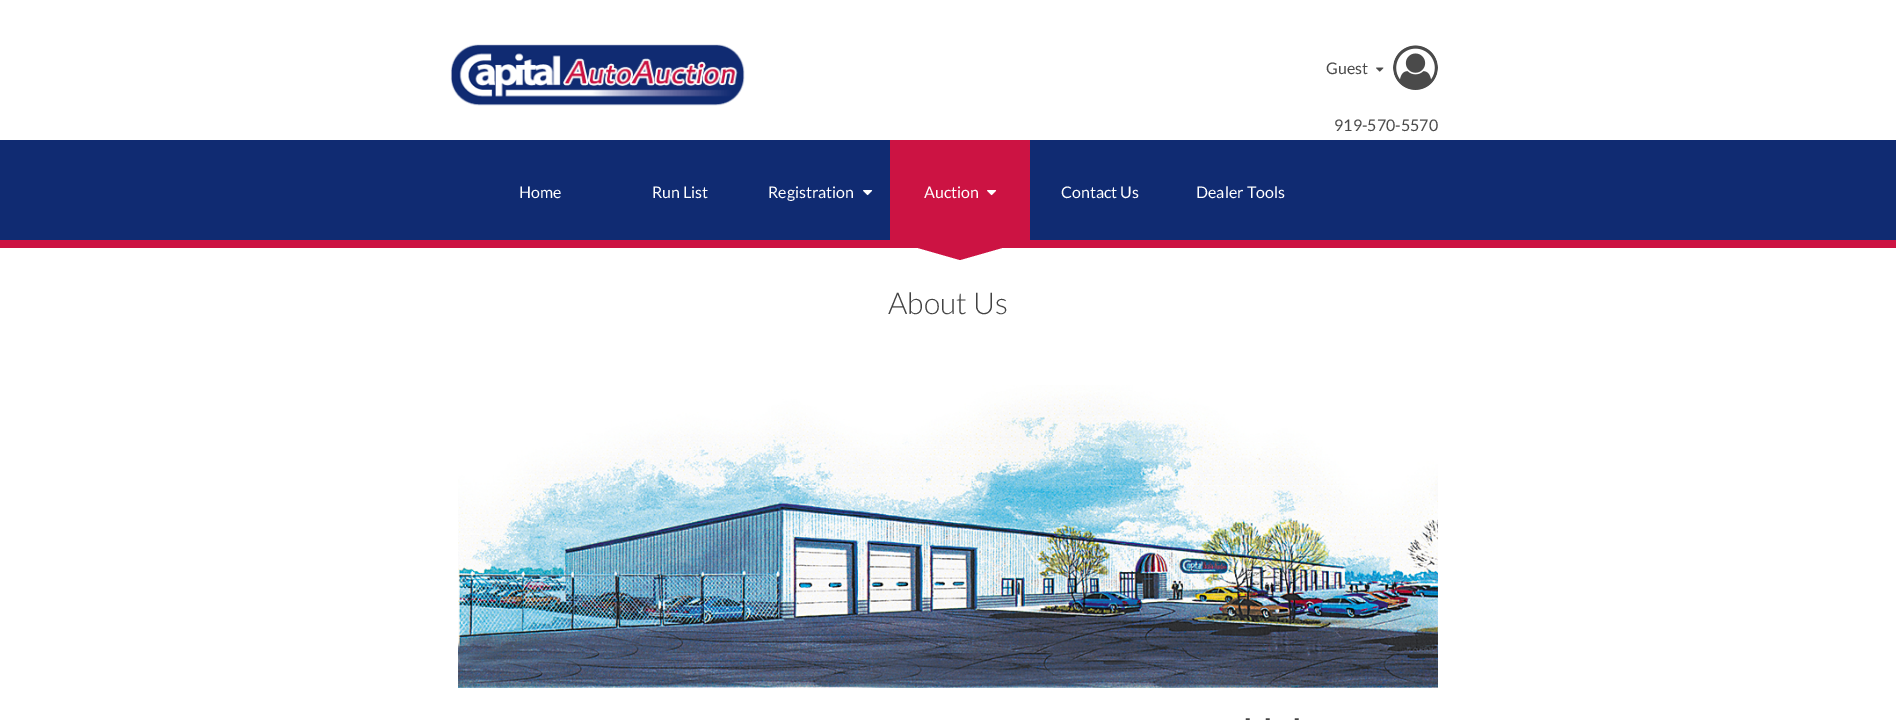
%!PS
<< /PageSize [1896 720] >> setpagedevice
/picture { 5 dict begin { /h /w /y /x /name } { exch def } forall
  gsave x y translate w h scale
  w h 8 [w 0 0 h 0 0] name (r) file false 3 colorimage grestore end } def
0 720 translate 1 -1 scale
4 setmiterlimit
1 setgray
0 0 1896 720 rectfill
(img1.rgb) 450 44 295 62 picture
/Lato-Regular [16 0 0 -16 0 0] selectfont
0.29 setgray
1326 74 moveto (Guest) show
(img2.rgb) 1376 67 8 5 picture
(img3.rgb) 1393 45 45 45 picture
1334 131 moveto (919-570-5570) show
0.063 0.169 0.447 setrgbcolor
0 140 1896 100 rectfill
0.8 0.075 0.263 setrgbcolor
0 240 1896 8 rectfill
1 setgray
519 198 moveto (Home) show
652 198 moveto (Run List) show
768 198 moveto (Registration) show
(img4.rgb) 863 190 10 6 picture
0.8 0.075 0.263 setrgbcolor
890 140 140 100 rectfill
1 setgray
924 198 moveto (Auction) show
(img5.rgb) 987 190 10 6 picture
0.8 0.075 0.263 setrgbcolor
newpath 890 240 moveto 1030 240 lineto 960 260 lineto closepath fill
1 setgray
1061 198 moveto (Contact Us) show
1196 198 moveto (Dealer Tools) show
/Lato-Light [30 0 0 -30 0 0] selectfont
0.259 setgray
888 314 moveto (About Us) show
(img6.rgb) 458 385 980 303 picture
/Lato-Regular [16 0 0 -16 0 0] selectfont
0 setgray
1245 724 moveto (-) show
1265 724 moveto (-) show
1294 724 moveto (-) show
showpage
